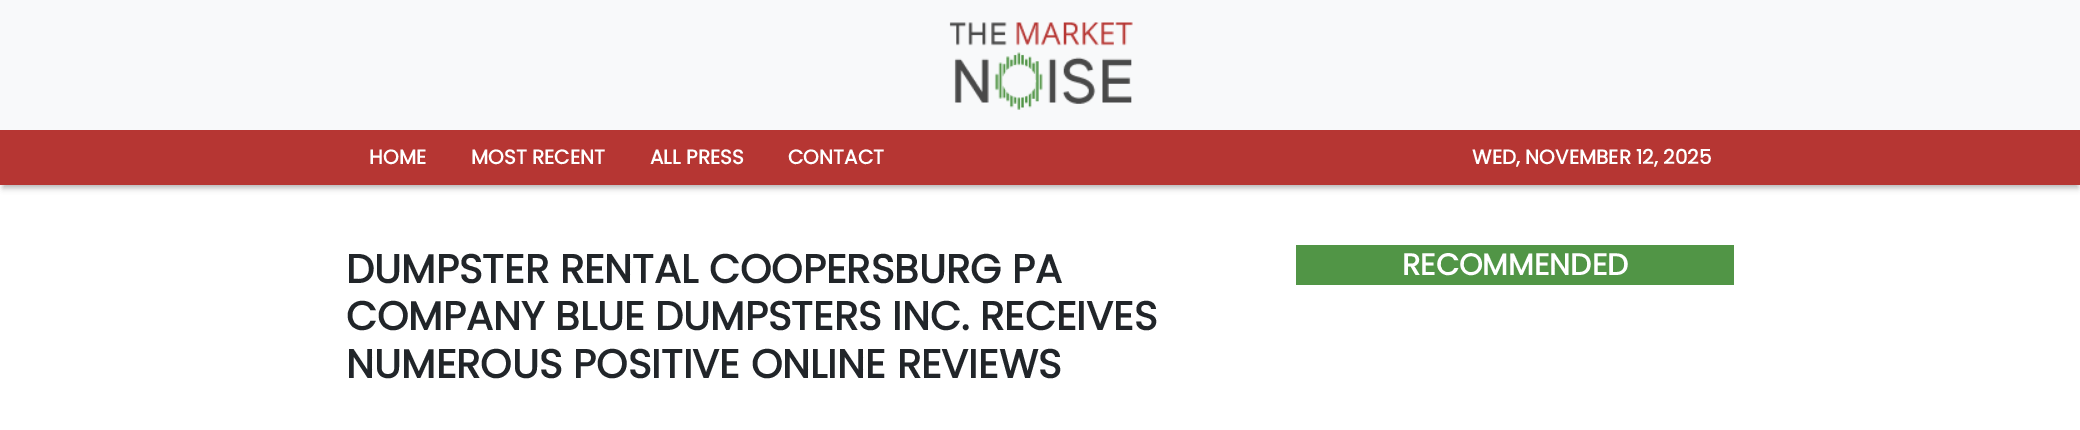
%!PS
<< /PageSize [2080 430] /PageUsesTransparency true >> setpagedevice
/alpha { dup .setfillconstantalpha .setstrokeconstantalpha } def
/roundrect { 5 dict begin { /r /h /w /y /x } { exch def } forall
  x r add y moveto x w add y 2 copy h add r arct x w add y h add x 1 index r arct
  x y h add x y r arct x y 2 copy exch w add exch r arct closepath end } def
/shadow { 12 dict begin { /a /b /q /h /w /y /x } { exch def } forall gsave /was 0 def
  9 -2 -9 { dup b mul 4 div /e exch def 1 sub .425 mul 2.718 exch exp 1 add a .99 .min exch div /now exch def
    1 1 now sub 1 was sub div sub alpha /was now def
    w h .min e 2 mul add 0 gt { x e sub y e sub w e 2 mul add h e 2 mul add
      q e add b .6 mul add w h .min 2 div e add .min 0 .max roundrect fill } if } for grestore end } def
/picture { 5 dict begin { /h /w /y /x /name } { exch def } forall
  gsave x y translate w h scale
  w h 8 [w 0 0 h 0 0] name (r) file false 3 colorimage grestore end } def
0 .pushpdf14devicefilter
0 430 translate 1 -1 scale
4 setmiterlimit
1 setgray
0 0 2080 430 rectfill
0.973 0.976 0.98 setrgbcolor
0 0 2080 130 rectfill
(img1.rgb) 949 22 184 88 picture
0.714 setgray
3 138 2075 50 0 3 1 shadow
0.714 0.212 0.2 setrgbcolor
0 130 2080 55 rectfill
/Poppins-Bold [20 0 0 -20 0 0] selectfont
1 setgray
369 164 moveto (HOME) show
471 164 moveto (MOST RECENT) show
650 164 moveto (ALL PRESS) show
788 164 moveto (CONTACT) show
1472 164 moveto (WED, NOVEMBER 12, 2025) show
/Poppins-Bold [40 0 0 -40 0 0] selectfont
0.129 0.145 0.161 setrgbcolor
346 283 moveto (DUMPSTER RENTAL COOPERSBURG PA) show
346 330 moveto (COMPANY BLUE DUMPSTERS INC. RECEIVES) show
346 378 moveto (NUMEROUS POSITIVE ONLINE REVIEWS) show
0.318 0.584 0.275 setrgbcolor
1296 245 438 40 rectfill
/Poppins-Bold [30 0 0 -30 0 0] selectfont
1 setgray
1402 275 moveto (RECOMMENDED) show
.poppdf14devicefilter showpage
